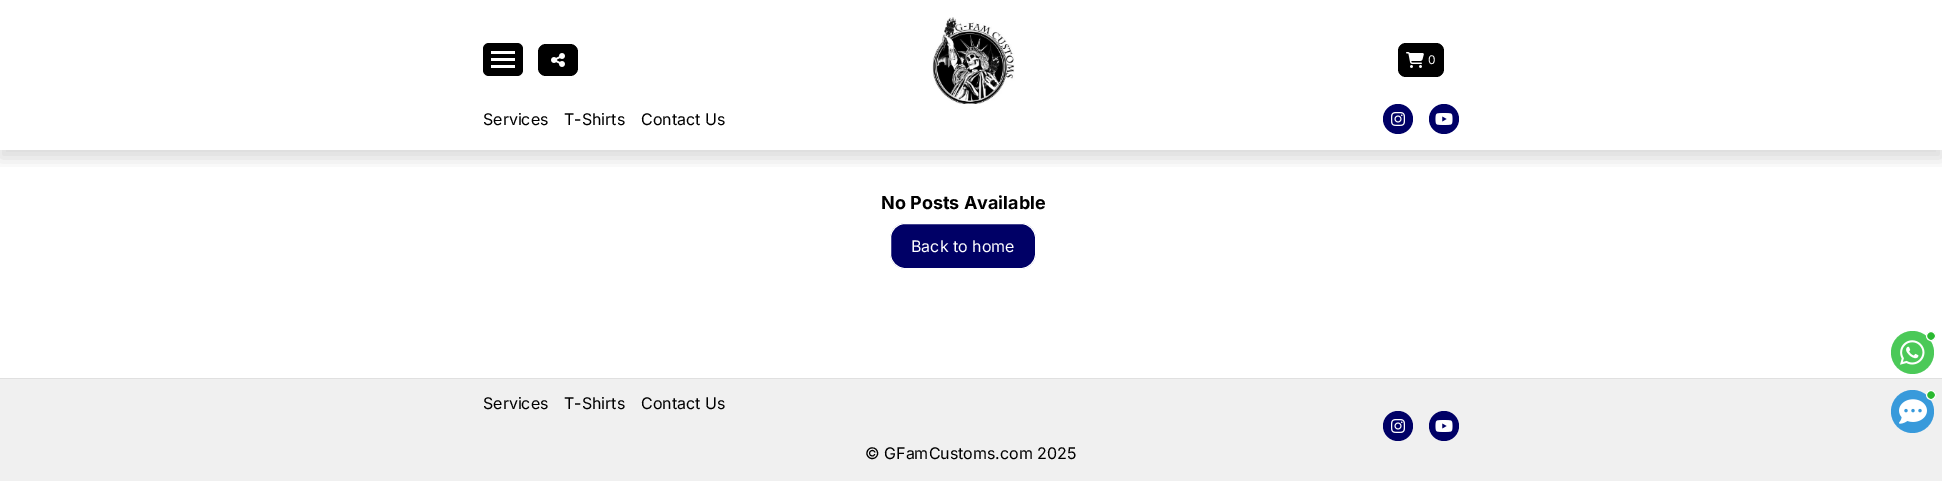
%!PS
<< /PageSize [1942 481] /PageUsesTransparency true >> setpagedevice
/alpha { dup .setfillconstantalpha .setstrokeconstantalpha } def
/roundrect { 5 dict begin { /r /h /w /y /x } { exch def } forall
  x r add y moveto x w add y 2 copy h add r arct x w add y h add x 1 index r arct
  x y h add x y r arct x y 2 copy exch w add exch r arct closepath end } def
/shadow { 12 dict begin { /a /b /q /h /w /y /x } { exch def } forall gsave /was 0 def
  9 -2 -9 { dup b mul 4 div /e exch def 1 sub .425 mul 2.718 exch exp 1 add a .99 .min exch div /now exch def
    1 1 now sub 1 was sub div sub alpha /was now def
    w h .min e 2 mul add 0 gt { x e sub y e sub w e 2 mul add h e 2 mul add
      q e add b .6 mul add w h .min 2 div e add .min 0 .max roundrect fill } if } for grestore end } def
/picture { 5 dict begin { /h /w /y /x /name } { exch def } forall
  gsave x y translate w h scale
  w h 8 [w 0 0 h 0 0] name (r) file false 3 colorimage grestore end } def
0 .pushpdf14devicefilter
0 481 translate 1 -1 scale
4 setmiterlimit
1 setgray
0 0 1942 481 rectfill
gsave
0 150 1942 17 rectclip
0 setgray
0 8 1942 150 0 8 0.15 shadow
grestore
0 setgray
483 43 40 33 6 roundrect fill
1 setgray
491 51 24 3 rectfill
491 58 24 3 rectfill
491 65 24 3 rectfill
0 setgray
538 44 40 32 8 roundrect fill
(img1.rgb) 551 53 14 14 picture
(img2.rgb) 932 17 83 87 picture
1398 43 46 34 8 roundrect fill
(img3.rgb) 1406 52 18 16 picture
/Inter-Regular [12 0 0 -12 0 0] selectfont
1 setgray
1428 64 moveto (0) show
/Inter-Regular [16 0 0 -16 0 0] selectfont
0 setgray
483 125 moveto (Services) show
564 125 moveto (T-Shirts) show
641 125 moveto (Contact Us) show
0 0 0.4 setrgbcolor
newpath 1398 119 15 0 360 arc closepath fill
(img4.rgb) 1391 112 14 14 picture
newpath 1444 119 15 0 360 arc closepath fill
(img5.rgb) 1435 113 18 12 picture
/Inter-Bold [18 0 0 -18 0 0] selectfont
0 setgray
881 209 moveto (No Posts Available) show
0 0 0.4 setrgbcolor
890.5 223.5 145 45 14.5 roundrect gsave fill grestore
1 setgray
stroke
/Inter-Regular [16 0 0 -16 0 0] selectfont
911 252 moveto (Back to home) show
0.941 setgray
0 379 1942 102 rectfill
0.878 setgray
0 378 1942 1 rectfill
0 setgray
483 409 moveto (Services) show
564 409 moveto (T-Shirts) show
641 409 moveto (Contact Us) show
0 0 0.4 setrgbcolor
newpath 1398 426 15 0 360 arc closepath fill
(img4.rgb) 1391 419 14 14 picture
newpath 1444 426 15 0 360 arc closepath fill
(img5.rgb) 1435 420 18 12 picture
0 setgray
865 459 moveto (© GFamCustoms.com 2025) show
0.294 0.788 0.345 setrgbcolor
newpath 1912.5 352.5 21.5 0 360 arc closepath fill
(img6.rgb) 1900 340 25 25 picture
0.165 0.725 0.188 setrgbcolor
newpath 1931 336 4.5 0 360 arc closepath gsave fill grestore
1 setgray
stroke
0.22 0.604 0.859 setrgbcolor
newpath 1912.5 411.5 21.5 0 360 arc closepath fill
(img7.rgb) 1899 399 28 25 picture
0.165 0.725 0.188 setrgbcolor
newpath 1931 395 4.5 0 360 arc closepath gsave fill grestore
1 setgray
stroke
.poppdf14devicefilter showpage
